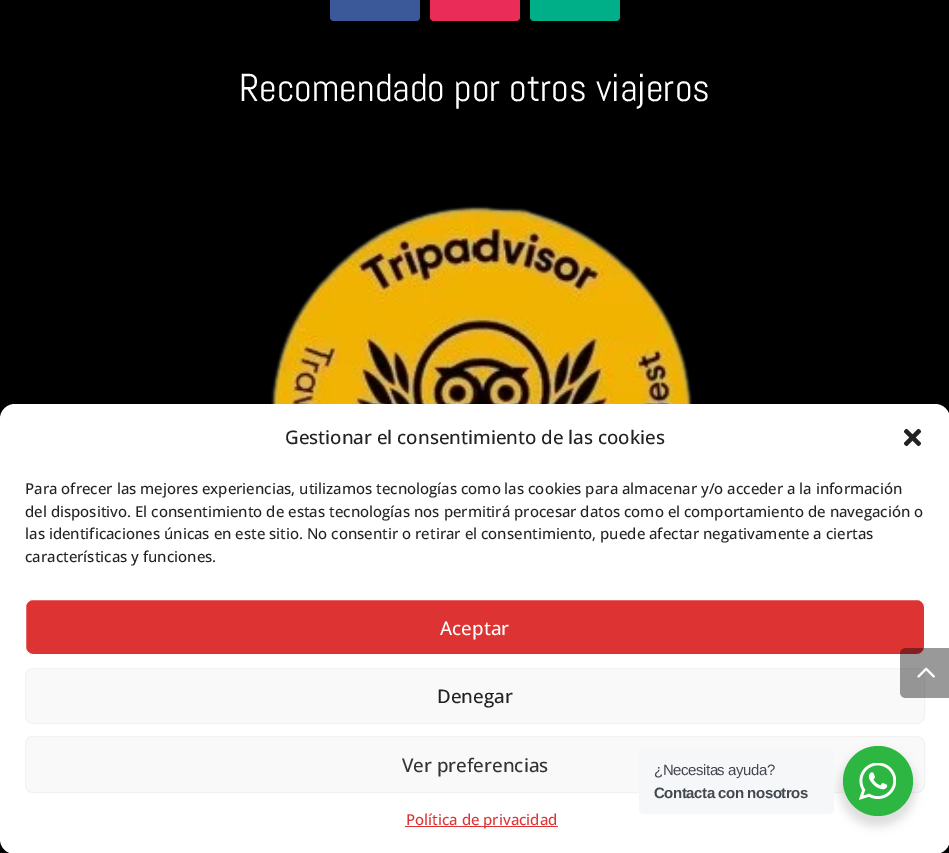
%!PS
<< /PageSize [949 853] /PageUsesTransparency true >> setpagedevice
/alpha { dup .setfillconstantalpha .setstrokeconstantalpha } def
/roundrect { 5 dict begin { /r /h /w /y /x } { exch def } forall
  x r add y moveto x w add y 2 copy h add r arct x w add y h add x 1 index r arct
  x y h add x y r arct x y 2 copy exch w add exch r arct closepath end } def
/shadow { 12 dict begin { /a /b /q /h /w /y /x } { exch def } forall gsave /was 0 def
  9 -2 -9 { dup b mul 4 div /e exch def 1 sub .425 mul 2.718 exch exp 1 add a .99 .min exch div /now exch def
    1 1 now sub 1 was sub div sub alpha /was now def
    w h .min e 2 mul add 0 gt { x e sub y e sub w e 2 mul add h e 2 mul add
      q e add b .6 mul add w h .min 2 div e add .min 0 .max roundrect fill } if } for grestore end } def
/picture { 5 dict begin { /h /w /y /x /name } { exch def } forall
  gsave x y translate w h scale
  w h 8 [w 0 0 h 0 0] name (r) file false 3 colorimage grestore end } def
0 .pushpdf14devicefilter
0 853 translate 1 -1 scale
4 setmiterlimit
0 setgray
0 0 949 853 rectfill
0.231 0.349 0.596 setrgbcolor
330 -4 90 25 4 roundrect fill
0.918 0.173 0.349 setrgbcolor
430 -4 90 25 4 roundrect fill
0 0.686 0.529 setrgbcolor
530 -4 90 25 4 roundrect fill
/Abel-Regular [38.75 0 0 -38.75 0 0] selectfont
1 setgray
239 101 moveto (Recomendado por otros viajeros) show
(img1.rgb) 271 206 421 198 picture
0 404 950 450 15 roundrect fill
/OpenSans-Medium [18.75 0 0 -18.75 0 0] selectfont
0.133 setgray
285 444 moveto (Gestionar el consentimiento de las cookies) show
(img2.rgb) 903 428 19 19 picture
/OpenSans-Medium [15 0 0 -15 0 0] selectfont
25 494 moveto (Para ofrecer las mejores experiencias, utilizamos tecnologías como las cookies para almacenar y/o acceder a la información) show
25 517 moveto (del dispositivo. El consentimiento de estas tecnologías nos permitirá procesar datos como el comportamiento de navegación o) show
25 539 moveto (las identificaciones únicas en este sitio. No consentir o retirar el consentimiento, puede afectar negativamente a ciertas) show
25 562 moveto (características y funciones.) show
0.867 0.2 0.2 setrgbcolor
25.5 599.5 899 55 7.5 roundrect gsave fill grestore
1 setgray
stroke
/OpenSans-Medium [18.75 0 0 -18.75 0 0] selectfont
440 635 moveto (Aceptar) show
0.976 setgray
25.5 668.5 899 55 7.5 roundrect gsave fill grestore
0.949 setgray
stroke
0.133 setgray
437 703 moveto (Denegar) show
0.976 setgray
25.5 736.5 899 56 7.5 roundrect gsave fill grestore
0.949 setgray
stroke
0.2 setgray
402 772 moveto (Ver preferencias) show
0.867 0.2 0.2 setrgbcolor
405 826 153 1 rectfill
/OpenSans-Medium [15 0 0 -15 0 0] selectfont
406 825 moveto (Política de privacidad) show
0.4 alpha
0 setgray
newpath 906 648 moveto 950 648 lineto 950 698 lineto 906 698 lineto 902.5 698 900 695.5 900 692 curveto 900 654 lineto 900 650.5 902.5 648 906 648 curveto closepath fill
1 alpha
(img3.rgb) 917 667 18 11 picture
840 751 75 75 37.5 5 0.14 shadow
0.961 0.969 0.976 setrgbcolor
639 749 195 65 5 roundrect fill
/LiberationSans-Regular [15 0 0 -15 0 0] selectfont
0.263 0.278 0.306 setrgbcolor
654 775 moveto -0.45 0 (¿Necesitas ayuda?) ashow
/LiberationSans-Bold [15 0 0 -15 0 0] selectfont
654 798 moveto -0.45 0 (Contacta con nosotros) ashow
0.176 0.718 0.259 setrgbcolor
newpath 878 781 35 0 360 arc closepath fill
(img4.rgb) 859 763 37 37 picture
.poppdf14devicefilter showpage
